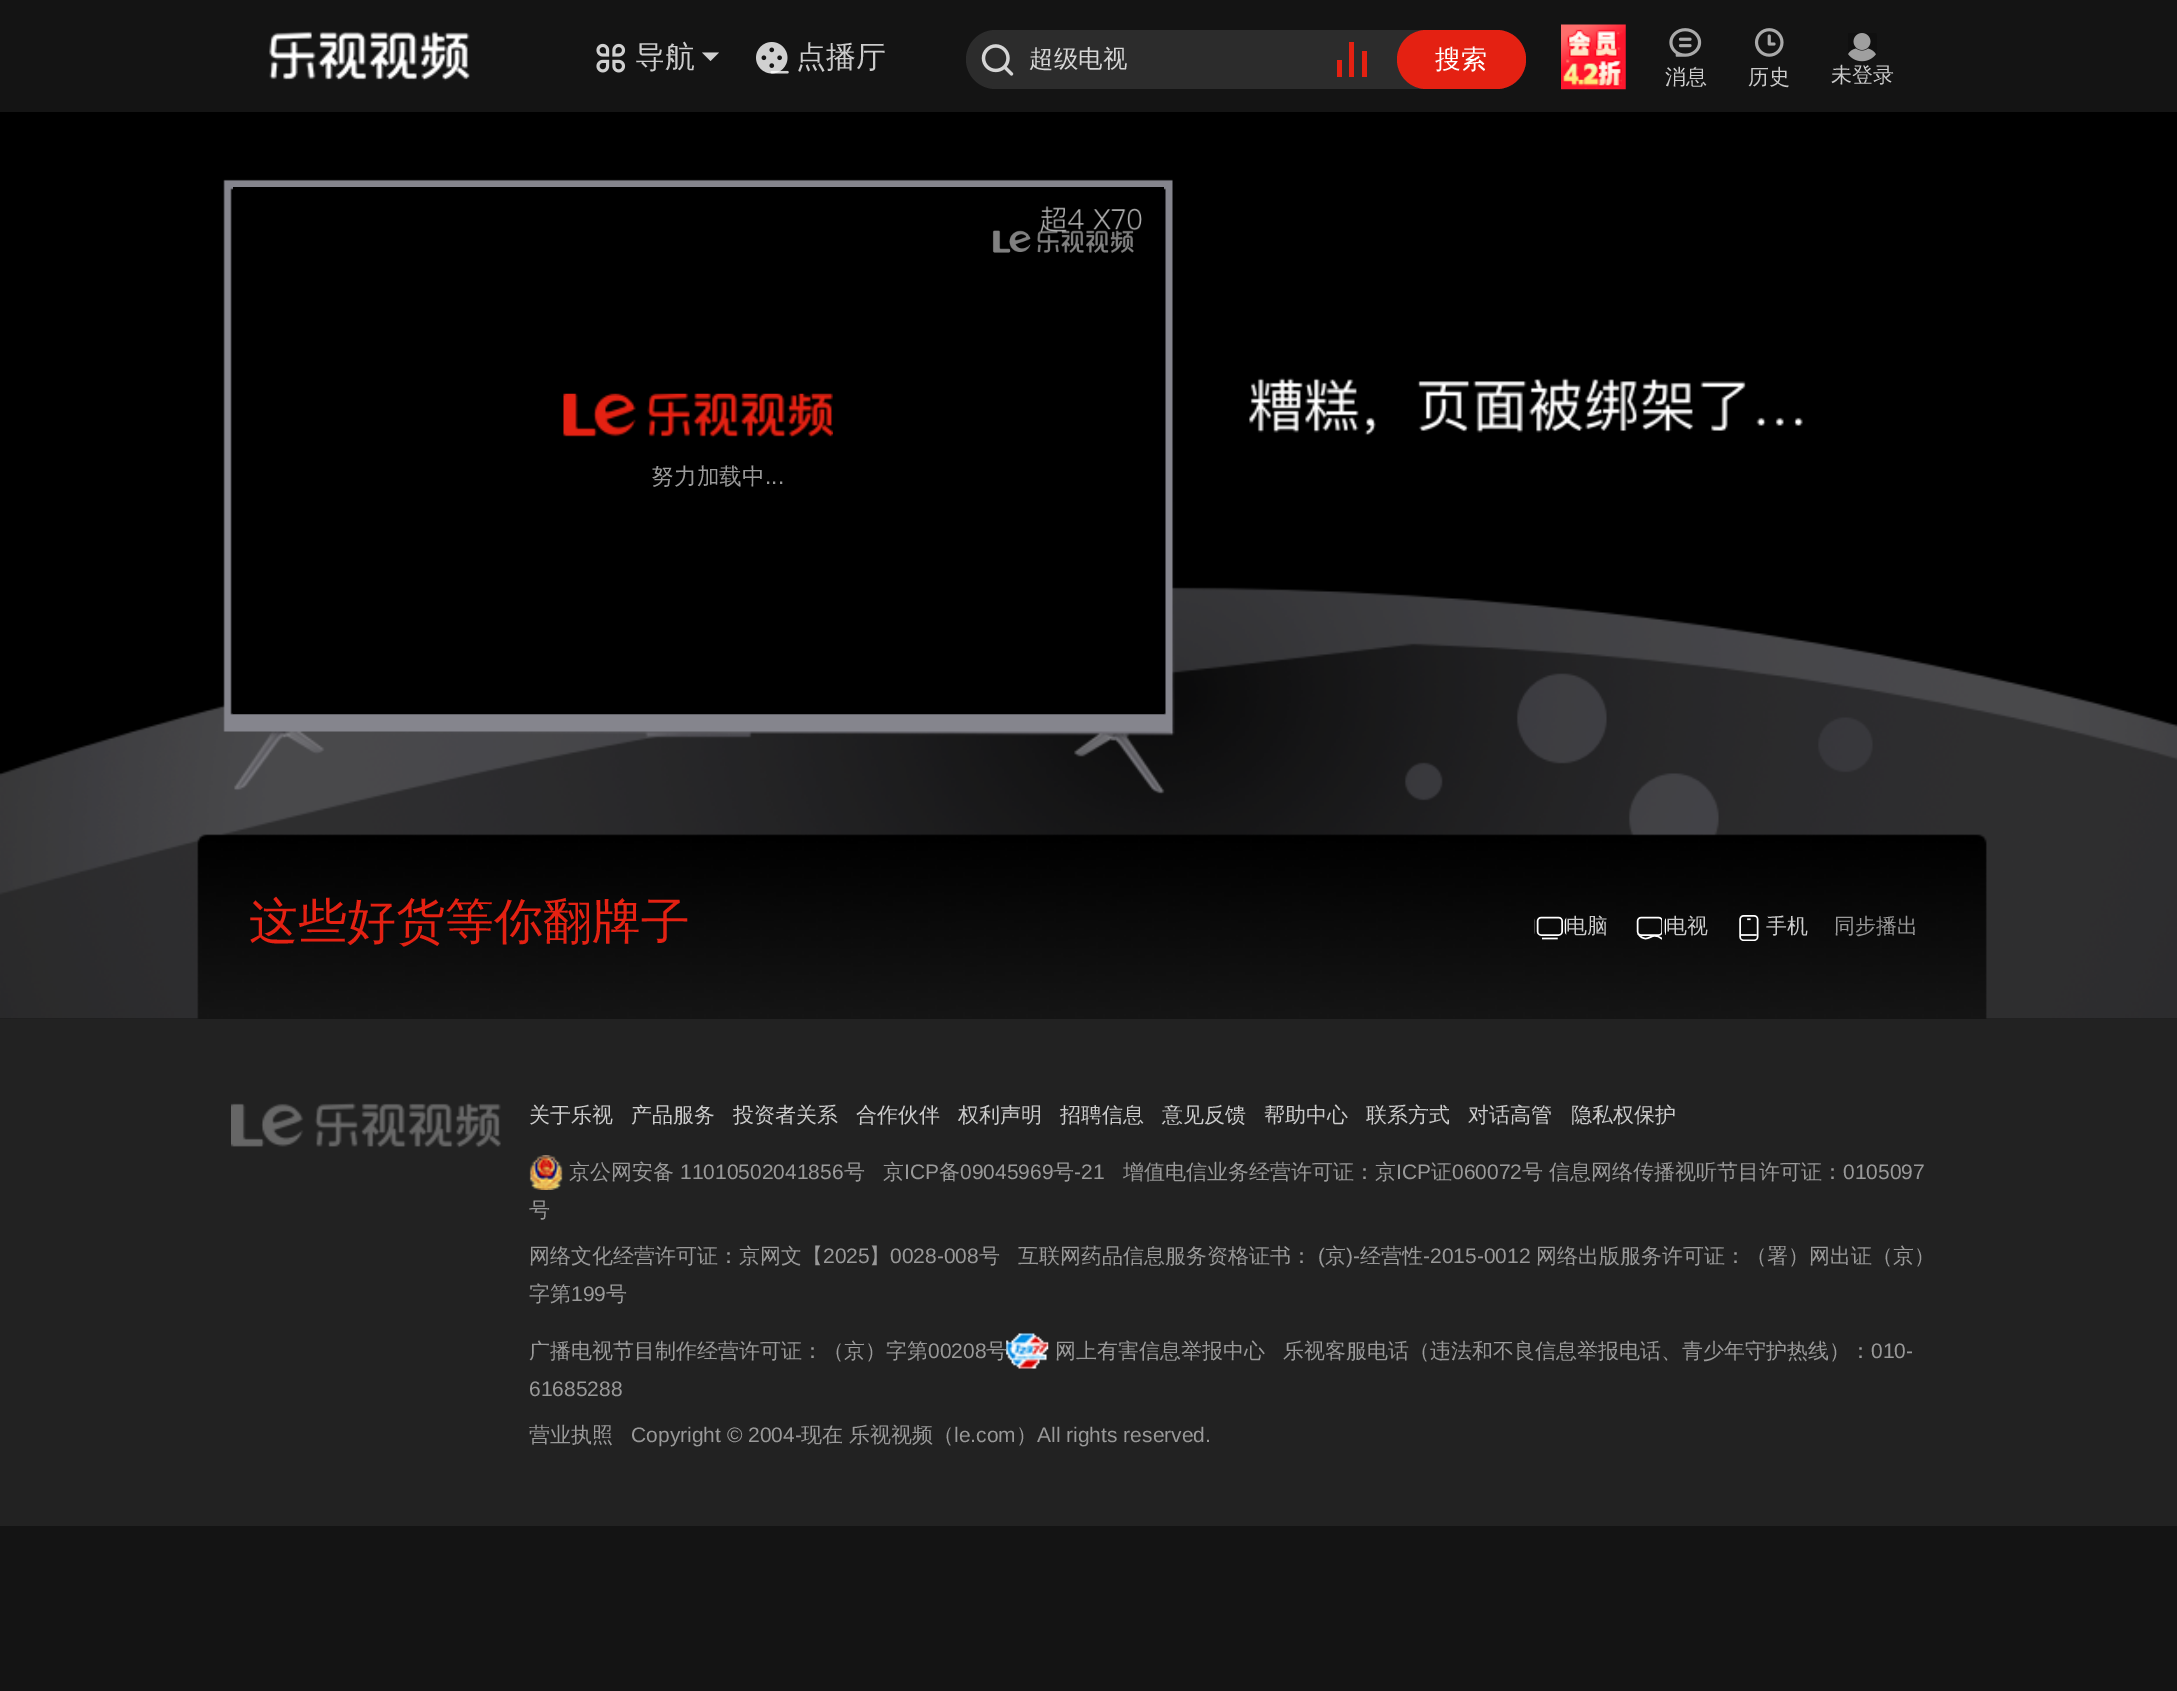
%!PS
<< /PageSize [2177 1691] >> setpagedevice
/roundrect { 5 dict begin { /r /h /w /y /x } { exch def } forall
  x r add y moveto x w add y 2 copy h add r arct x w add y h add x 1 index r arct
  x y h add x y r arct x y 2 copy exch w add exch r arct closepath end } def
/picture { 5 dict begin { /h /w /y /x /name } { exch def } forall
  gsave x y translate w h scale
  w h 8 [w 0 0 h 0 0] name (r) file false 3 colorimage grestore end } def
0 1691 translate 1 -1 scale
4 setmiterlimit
0.078 setgray
0 0 2177 1691 rectfill
(img1.rgb) 269 31 201 50 picture
(img2.rgb) 596 43 30 30 picture
/WenQuanYiZenHei-Medium [30 0 0 -30 0 0] selectfont
0.8 setgray
635 67 moveto (导航) show
0.816 setgray
newpath 702 52.5 moveto 719 52.5 lineto 710.5 61 lineto closepath fill
(img3.rgb) 756 42 33 32 picture
0.8 setgray
796 67 moveto (点播厅) show
0.173 setgray
966 30 560 59 29.5 roundrect fill
(img4.rgb) 981 44 33 32 picture
/WenQuanYiZenHei-Medium [24.5 0 0 -24.5 0 0] selectfont
0.835 setgray
1029 67 moveto (超级电视) show
0.894 0.129 0.071 setrgbcolor
1337 60 5 17 rectfill
1349 42 5 35 rectfill
1362 51 5 26 rectfill
1397 30 129 59 29.5 roundrect fill
/WenQuanYiZenHei-Medium [26 0 0 -26 0 0] selectfont
1 setgray
1435 68 moveto (搜索) show
(img5.rgb) 1561 24 65 66 picture
(img6.rgb) 1669 28 33 29 picture
/WenQuanYiZenHei-Medium [21 0 0 -21 0 0] selectfont
0.8 setgray
1665 84 moveto (消息) show
(img7.rgb) 1754 28 30 29 picture
1748 84 moveto (历史) show
(img8.rgb) 1848 33 29 29 picture
1831 82 moveto (未登录) show
(img9.rgb) 0 112 2177 907 picture
0 setgray
233 187 931 527 rectfill
(img11.rgb) 992 230 142 23 picture
(img10.rgb) 1039 206 103 36 picture
(img12.rgb) 563 393 270 45 picture
/WenQuanYiZenHei-Medium [22.75 0 0 -22.75 0 0] selectfont
0.6 setgray
651 484 moveto (努力加载中) show
/LiberationSans-Regular [22.75 0 0 -22.75 0 0] selectfont
765 484 moveto (...) show
/WenQuanYiZenHei-Medium [49 0 0 -49 0 0] selectfont
0.894 0.129 0.071 setrgbcolor
249 938 moveto (这些好货等你翻牌子) show
(img13.rgb) 1534 916 33 24 picture
/WenQuanYiZenHei-Medium [21 0 0 -21 0 0] selectfont
0.8 setgray
1566 933 moveto (电脑) show
(img14.rgb) 1636 916 30 24 picture
1666 933 moveto (电视) show
(img15.rgb) 1739 915 20 26 picture
1766 933 moveto (手机) show
0.6 setgray
1834 933 moveto (同步播出) show
0.133 setgray
0 1019 2177 507 rectfill
(img16.rgb) 231 1102 270 46 picture
0.8 setgray
529 1122 moveto (关于乐视) show
631 1122 moveto (产品服务) show
733 1122 moveto (投资者关系) show
856 1122 moveto (合作伙伴) show
958 1122 moveto (权利声明) show
1060 1122 moveto (招聘信息) show
1162 1122 moveto (意见反馈) show
1264 1122 moveto (帮助中心) show
1366 1122 moveto (联系方式) show
1468 1122 moveto (对话高管) show
1571 1122 moveto (隐私权保护) show
(img17.rgb) 529 1155 34 35 picture
0.6 setgray
569 1179 moveto (京公网安备) show
/LiberationSans-Regular [21 0 0 -21 0 0] selectfont
680 1179 moveto (11010502041856) show
/WenQuanYiZenHei-Medium [21 0 0 -21 0 0] selectfont
844 1179 moveto (号) show
883 1179 moveto (京) show
/LiberationSans-Regular [21 0 0 -21 0 0] selectfont
904 1179 moveto (ICP) show
/WenQuanYiZenHei-Medium [21 0 0 -21 0 0] selectfont
939 1179 moveto (备) show
/LiberationSans-Regular [21 0 0 -21 0 0] selectfont
960 1179 moveto (09045969) show
/WenQuanYiZenHei-Medium [21 0 0 -21 0 0] selectfont
1053 1179 moveto (号) show
/LiberationSans-Regular [21 0 0 -21 0 0] selectfont
1074 1179 moveto (-21) show
/WenQuanYiZenHei-Medium [21 0 0 -21 0 0] selectfont
1123 1179 moveto (增值电信业务经营许可证：京) show
/LiberationSans-Regular [21 0 0 -21 0 0] selectfont
1396 1179 moveto (ICP) show
/WenQuanYiZenHei-Medium [21 0 0 -21 0 0] selectfont
1431 1179 moveto (证) show
/LiberationSans-Regular [21 0 0 -21 0 0] selectfont
1452 1179 moveto (060072) show
/WenQuanYiZenHei-Medium [21 0 0 -21 0 0] selectfont
1522 1179 moveto (号) show
1549 1179 moveto (信息网络传播视听节目许可证：) show
/LiberationSans-Regular [21 0 0 -21 0 0] selectfont
1843 1179 moveto (0105097) show
/WenQuanYiZenHei-Medium [21 0 0 -21 0 0] selectfont
529 1217 moveto (号) show
529 1263 moveto (网络文化经营许可证：京网文【) show
/LiberationSans-Regular [21 0 0 -21 0 0] selectfont
823 1263 moveto (2025) show
/WenQuanYiZenHei-Medium [21 0 0 -21 0 0] selectfont
869 1263 moveto (】) show
/LiberationSans-Regular [21 0 0 -21 0 0] selectfont
890 1263 moveto (0028-008) show
/WenQuanYiZenHei-Medium [21 0 0 -21 0 0] selectfont
979 1263 moveto (号) show
1018 1263 moveto (互联网药品信息服务资格证书：) show
/LiberationSans-Regular [21 0 0 -21 0 0] selectfont
1318 1263 moveto (\() show
/WenQuanYiZenHei-Medium [21 0 0 -21 0 0] selectfont
1325 1263 moveto (京) show
/LiberationSans-Regular [21 0 0 -21 0 0] selectfont
1346 1263 moveto (\)-) show
/WenQuanYiZenHei-Medium [21 0 0 -21 0 0] selectfont
1360 1263 moveto (经营性) show
/LiberationSans-Regular [21 0 0 -21 0 0] selectfont
1423 1263 moveto (-2015-0012) show
/WenQuanYiZenHei-Medium [21 0 0 -21 0 0] selectfont
1536 1263 moveto (网络出版服务许可证：（署）网出证（京）) show
529 1301 moveto (字第) show
/LiberationSans-Regular [21 0 0 -21 0 0] selectfont
571 1301 moveto (199) show
/WenQuanYiZenHei-Medium [21 0 0 -21 0 0] selectfont
606 1301 moveto (号) show
529 1358 moveto (广播电视节目制作经营许可证：（京）字第) show
/LiberationSans-Regular [21 0 0 -21 0 0] selectfont
928 1358 moveto (00208) show
/WenQuanYiZenHei-Medium [21 0 0 -21 0 0] selectfont
986 1358 moveto (号) show
(img18.rgb) 1006 1333 43 36 picture
1055 1358 moveto (网上有害信息举报中心) show
1283 1358 moveto (乐视客服电话（违法和不良信息举报电话、青少年守护热线）：) show
/LiberationSans-Regular [21 0 0 -21 0 0] selectfont
1871 1358 moveto (010-) show
529 1396 moveto (61685288) show
/WenQuanYiZenHei-Medium [21 0 0 -21 0 0] selectfont
529 1442 moveto (营业执照) show
/LiberationSans-Regular [21 0 0 -21 0 0] selectfont
631 1442 moveto (Copyright © 2004-) show
/WenQuanYiZenHei-Medium [21 0 0 -21 0 0] selectfont
801 1442 moveto (现在) show
849 1442 moveto (乐视视频（) show
/LiberationSans-Regular [21 0 0 -21 0 0] selectfont
954 1442 moveto (le.com) show
/WenQuanYiZenHei-Medium [21 0 0 -21 0 0] selectfont
1016 1442 moveto (）) show
/LiberationSans-Regular [21 0 0 -21 0 0] selectfont
1037 1442 moveto (All rights reserved.) show
showpage
